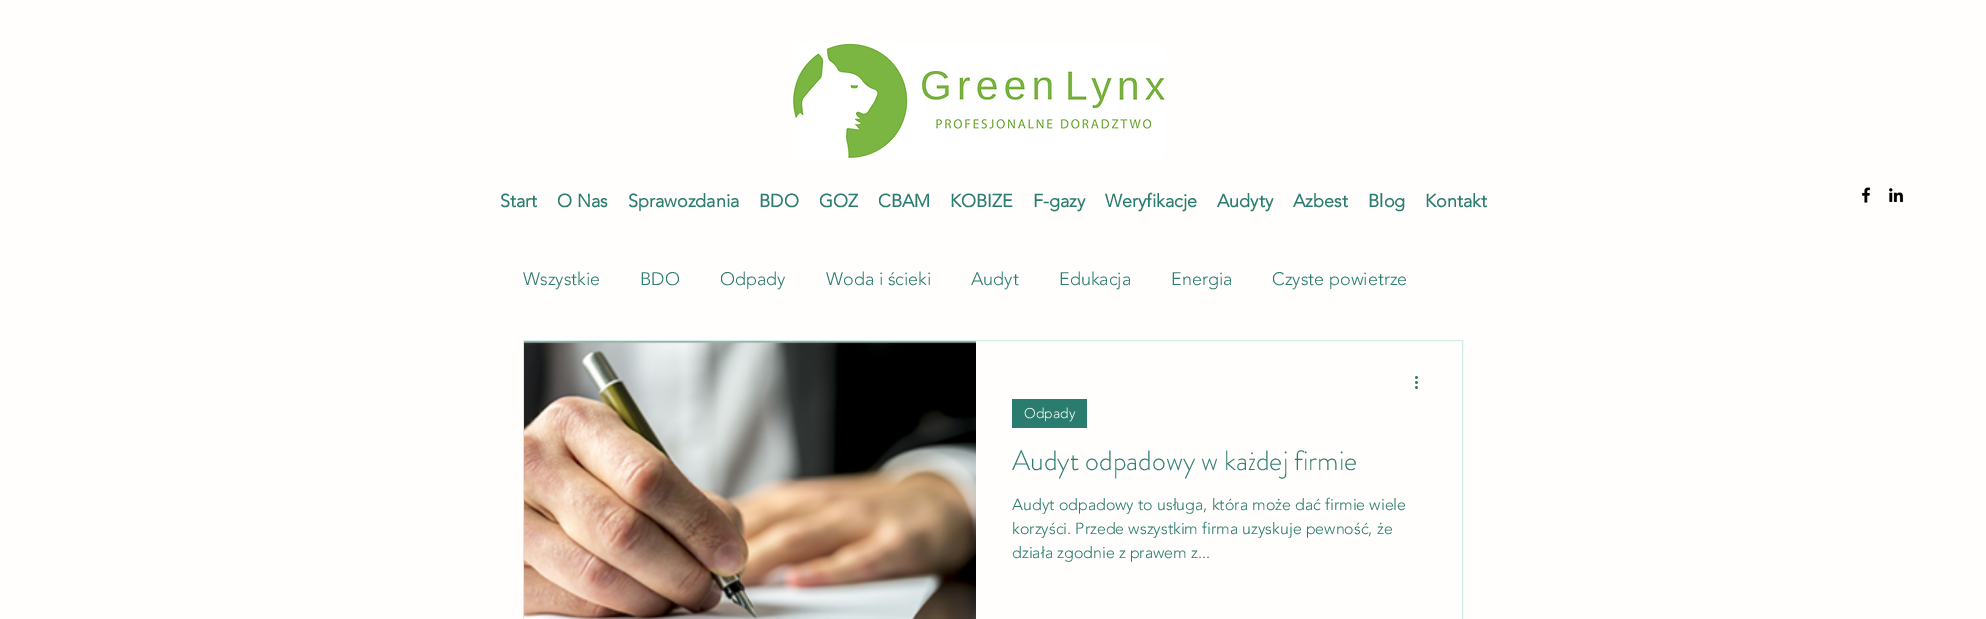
%!PS
<< /PageSize [1986 619] >> setpagedevice
/picture { 5 dict begin { /h /w /y /x /name } { exch def } forall
  gsave x y translate w h scale
  w h 8 [w 0 0 h 0 0] name (r) file false 3 colorimage grestore end } def
0 619 translate 1 -1 scale
4 setmiterlimit
1 0.996 0.988 setrgbcolor
0 0 1986 619 rectfill
(img1.rgb) 793 43 372 115 picture
/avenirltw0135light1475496-Bold [18 0 0 -18 0 0] selectfont
0.165 0.486 0.435 setrgbcolor
500 207 moveto (Start) show
557 207 moveto (O Nas) show
628 207 moveto (Sprawozdania) show
759 207 moveto (BDO) show
819 207 moveto (GOZ) show
878 207 moveto (CBAM) show
950 207 moveto (KOBIZE) show
1033 207 moveto (F-gazy) show
1105 207 moveto (Weryfikacje) show
1217 207 moveto (Audyty) show
1293 207 moveto (Azbest) show
1368 207 moveto (Blog) show
1425 207 moveto (Kontakt) show
(img2.rgb) 1862 187 9 16 picture
(img3.rgb) 1889 188 15 15 picture
/avenirltw0135light1475496-Light [18 0 0 -18 0 0] selectfont
523 285 moveto (Wszystkie) show
640 285 moveto (BDO) show
720 285 moveto (Odpady) show
826 285 moveto (Woda i ścieki) show
971 285 moveto (Audyt) show
1059 285 moveto (Edukacja) show
1171 285 moveto (Energia) show
1272 285 moveto (Czyste powietrze) show
0.808 0.933 0.914 setrgbcolor
523.5 340.5 939 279 rectstroke
(img4.rgb) 524 341 452 278 picture
(img5.rgb) 1415 376 3 13 picture
0.165 0.486 0.435 setrgbcolor
1012 399 75 29 rectfill
/avenirltw0135light1475496-Light [14 0 0 -14 0 0] selectfont
1 0.996 0.988 setrgbcolor
1024 418 moveto (Odpady) show
/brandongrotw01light-Light [28 0 0 -28 0 0] selectfont
0.165 0.486 0.435 setrgbcolor
1012 470 moveto (Audyt odpadowy w każdej firmie) show
/avenirltw0135light1475496-Light [16 0 0 -16 0 0] selectfont
1012 510 moveto (Audyt odpadowy to usługa, która może dać firmie wiele) show
1012 534 moveto (korzyści. Przede wszystkim firma uzyskuje pewność, że) show
1012 558 moveto (działa zgodnie z prawem z...) show
showpage
